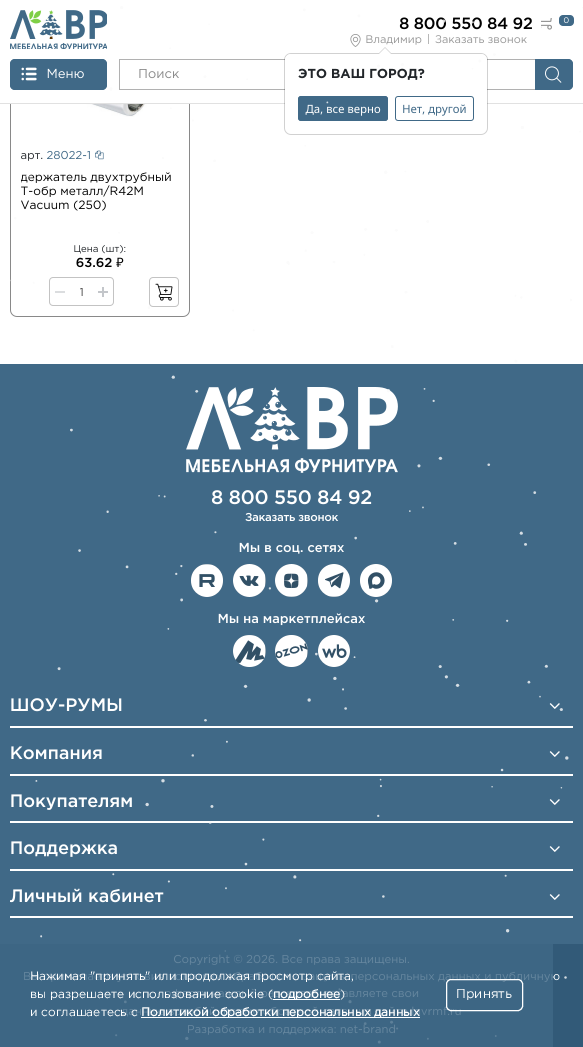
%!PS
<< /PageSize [583 1047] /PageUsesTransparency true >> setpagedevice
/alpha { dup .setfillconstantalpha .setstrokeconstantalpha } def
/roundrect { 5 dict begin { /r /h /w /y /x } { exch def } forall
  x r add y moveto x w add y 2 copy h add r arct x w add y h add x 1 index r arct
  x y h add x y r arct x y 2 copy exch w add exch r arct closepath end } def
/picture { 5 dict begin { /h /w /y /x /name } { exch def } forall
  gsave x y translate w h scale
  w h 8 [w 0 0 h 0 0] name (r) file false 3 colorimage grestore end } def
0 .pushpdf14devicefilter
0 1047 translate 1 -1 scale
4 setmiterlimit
1 setgray
0 0 583 1047 rectfill
0.537 setgray
10.5 4.5 179 312 6.5 roundrect stroke
1 setgray
10 4 180 99 rectfill
0.882 setgray
0 103 583 1 rectfill
(img2.rgb) 10 10 97 39 picture
/Gotham-Medium [16.25 0 0 -16.25 0 0] selectfont
0 setgray
399 29 moveto -0.25 0 (8 800 550 84 92) ashow
(img3.rgb) 541 18 11 12 picture
0.251 0.412 0.529 setrgbcolor
559 15 15 11 4 roundrect fill
/Gotham-Bold [8 0 0 -8 0 0] selectfont
1 setgray
563 23 moveto (0) show
(img4.rgb) 350 34 11 13 picture
/Gotham-Regular [11 0 0 -11 0 0] selectfont
0.588 setgray
365 43 moveto (Владимир) show
0.718 setgray
428 34 1 10 rectfill
0.588 setgray
435 43 moveto (Заказать звонок) show
0.251 0.412 0.529 setrgbcolor
10.5 59.5 96 30 4.5 roundrect gsave fill grestore
stroke
(img5.rgb) 21 67 16 14 picture
/Gotham-Regular [13 0 0 -13 0 0] selectfont
1 setgray
47 78 moveto (Меню) show
0.694 setgray
119.5 59.5 416 30 rectstroke
gsave
138 69 382 12 rectclip
0.537 setgray
138 78 moveto (Поиск) show
grestore
0.251 0.412 0.529 setrgbcolor
newpath 535.5 59.5 moveto 568 59.5 lineto 570.5 59.5 572.5 61.5 572.5 64 curveto 572.5 85 lineto 572.5 87.5 570.5 89.5 568 89.5 curveto 535.5 89.5 lineto closepath gsave fill grestore
stroke
(img6.rgb) 545 66 17 17 picture
1 setgray
285 54 202 80 6 roundrect fill
0.18 alpha
0 setgray
284.5 53.5 203 81 6.5 roundrect stroke
1 alpha
0.824 setgray
newpath 391 53 moveto 379 53 lineto 385 47 lineto closepath fill
1 setgray
newpath 391 54 moveto 379 54 lineto 385 48 lineto closepath fill
newpath 291 54 moveto 481 54 lineto 484.5 54 487 56.5 487 60 curveto 487 96 lineto 285 96 lineto 285 60 lineto 285 56.5 287.5 54 291 54 curveto closepath fill
/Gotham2-Bold [13 0 0 -13 0 0] selectfont
0.129 0.145 0.161 setrgbcolor
298 78 moveto (ЭТО ВАШ ГОРОД?) show
0.251 0.412 0.529 setrgbcolor
298.5 96.5 89 24 2.5 roundrect gsave fill grestore
stroke
/NotoSans-Regular [11.5 0 0 -11.5 0 0] selectfont
1 setgray
306 113 moveto (Да, все верно) show
0.251 0.412 0.529 setrgbcolor
395.5 96.5 78 24 2.5 roundrect stroke
402 113 moveto (Нет, другой) show
(img7.rgb) 46 104 107 13 picture
/Gotham-Regular [11.5 0 0 -11.5 0 0] selectfont
0.129 0.145 0.161 setrgbcolor
21 159 moveto (арт.) show
/Gotham-Bold [11.5 0 0 -11.5 0 0] selectfont
0.251 0.412 0.529 setrgbcolor
47 159 moveto (28022-1) show
(img8.rgb) 95 150 9 10 picture
gsave
21 171 158 69 rectclip
/Gotham-Regular [12 0 0 -12 0 0] selectfont
0 setgray
21 181 moveto (держатель двухтрубный) show
grestore
/Gotham-Regular [12 0 0 -12 0 0] selectfont
0 setgray
21 195 moveto (Т-обр металл/R42М) show
21 209 moveto (Vacuum \(250\)) show
/Gotham-Regular [9.75 0 0 -9.75 0 0] selectfont
0.129 0.145 0.161 setrgbcolor
73 252 moveto (Цена \(шт\):) show
/Gotham-Medium [13 0 0 -13 0 0] selectfont
0 setgray
76 267 moveto (63.62) show
/NotoSans-Regular [13 0 0 -13 0 0] selectfont
116 267 moveto (₽) show
0.765 setgray
49.5 277.5 64 28 3.5 roundrect stroke
0.859 0.867 0.875 setrgbcolor
55 291 10 2 rectfill
/Gotham-Regular [11.5 0 0 -11.5 0 0] selectfont
0.267 0.263 0.263 setrgbcolor
80 296 moveto (1) show
(img9.rgb) 98 287 10 10 picture
0.765 setgray
149.5 277.5 29 29 3.5 roundrect stroke
(img10.rgb) 155 283 18 18 picture
0.251 0.412 0.529 setrgbcolor
0 364 583 580 rectfill
(img11.rgb) 186 387 212 86 picture
/Gotham-Medium [19.5 0 0 -19.5 0 0] selectfont
1 setgray
211 504 moveto -0.25 0 (8 800 550 84 92) ashow
/Gotham-Medium [11.5 0 0 -11.5 0 0] selectfont
245 521 moveto -0.25 0 (Заказать звонок) ashow
/Gotham-Medium [13 0 0 -13 0 0] selectfont
239 552 moveto (Мы в соц. сетях) show
0.192 0.314 0.4 setrgbcolor
191 564 32 33 16 roundrect fill
(img12.rgb) 191 564 32 33 picture
newpath 249.5 580.5 16.5 0 360 arc closepath fill
(img13.rgb) 233 564 33 33 picture
newpath 291.5 580.5 16.5 0 360 arc closepath fill
(img14.rgb) 275 564 33 33 picture
318 564 32 33 16 roundrect fill
(img15.rgb) 318 564 32 33 picture
360 564 32 33 16 roundrect fill
(img16.rgb) 360 564 32 33 picture
1 setgray
218 623 moveto (Мы на маркетплейсах) show
0.192 0.314 0.4 setrgbcolor
233 635 33 32 16 roundrect fill
(img17.rgb) 233 635 33 32 picture
275 635 33 32 16 roundrect fill
(img18.rgb) 275 635 33 32 picture
newpath 334 651 16 0 360 arc closepath fill
(img19.rgb) 318 635 32 32 picture
/Gotham-Medium [18 0 0 -18 0 0] selectfont
1 setgray
10 711 moveto (ШОУ-РУМЫ) show
10 726 563 2 rectfill
(img20.rgb) 549 703 11 6 picture
10 759 moveto (Компания) show
10 774 563 2 rectfill
(img20.rgb) 549 751 11 6 picture
10 807 moveto (Покупателям) show
10 821 563 2 rectfill
(img20.rgb) 549 799 11 6 picture
10 854 moveto (Поддержка) show
10 869 563 2 rectfill
(img20.rgb) 549 846 11 6 picture
10 902 moveto (Личный кабинет) show
10 916 563 2 rectfill
(img20.rgb) 549 894 11 6 picture
0.196 0.353 0.471 setrgbcolor
0 944 583 103 rectfill
/Gotham-Regular [11.5 0 0 -11.5 0 0] selectfont
1 setgray
551 980 moveto (ю) show
(img1.rgb) 10 6 573 1038 picture
0.8 alpha
0.251 0.412 0.529 setrgbcolor
0 944 553 103 rectfill
/Gotham-Regular [12 0 0 -12 0 0] selectfont
1 alpha
1 setgray
30 980 moveto (Нажимая "принять" или продолжая просмотр сайта,) show
30 998 moveto (вы разрешаете использование cookie \() show
273 999 67 1 rectfill
/Gotham-Bold [12 0 0 -12 0 0] selectfont
273 998 moveto (подробнее) show
/Gotham-Regular [12 0 0 -12 0 0] selectfont
340 998 moveto (\)) show
30 1016 moveto (и соглашаетесь с) show
141 1017 279 1 rectfill
/Gotham-Bold [12 0 0 -12 0 0] selectfont
141 1016 moveto (Политикой обработки персональных данных) show
446.5 979.5 76 31 4.5 roundrect stroke
/Gotham-Regular [13 0 0 -13 0 0] selectfont
456 998 moveto (Принять) show
.poppdf14devicefilter showpage
